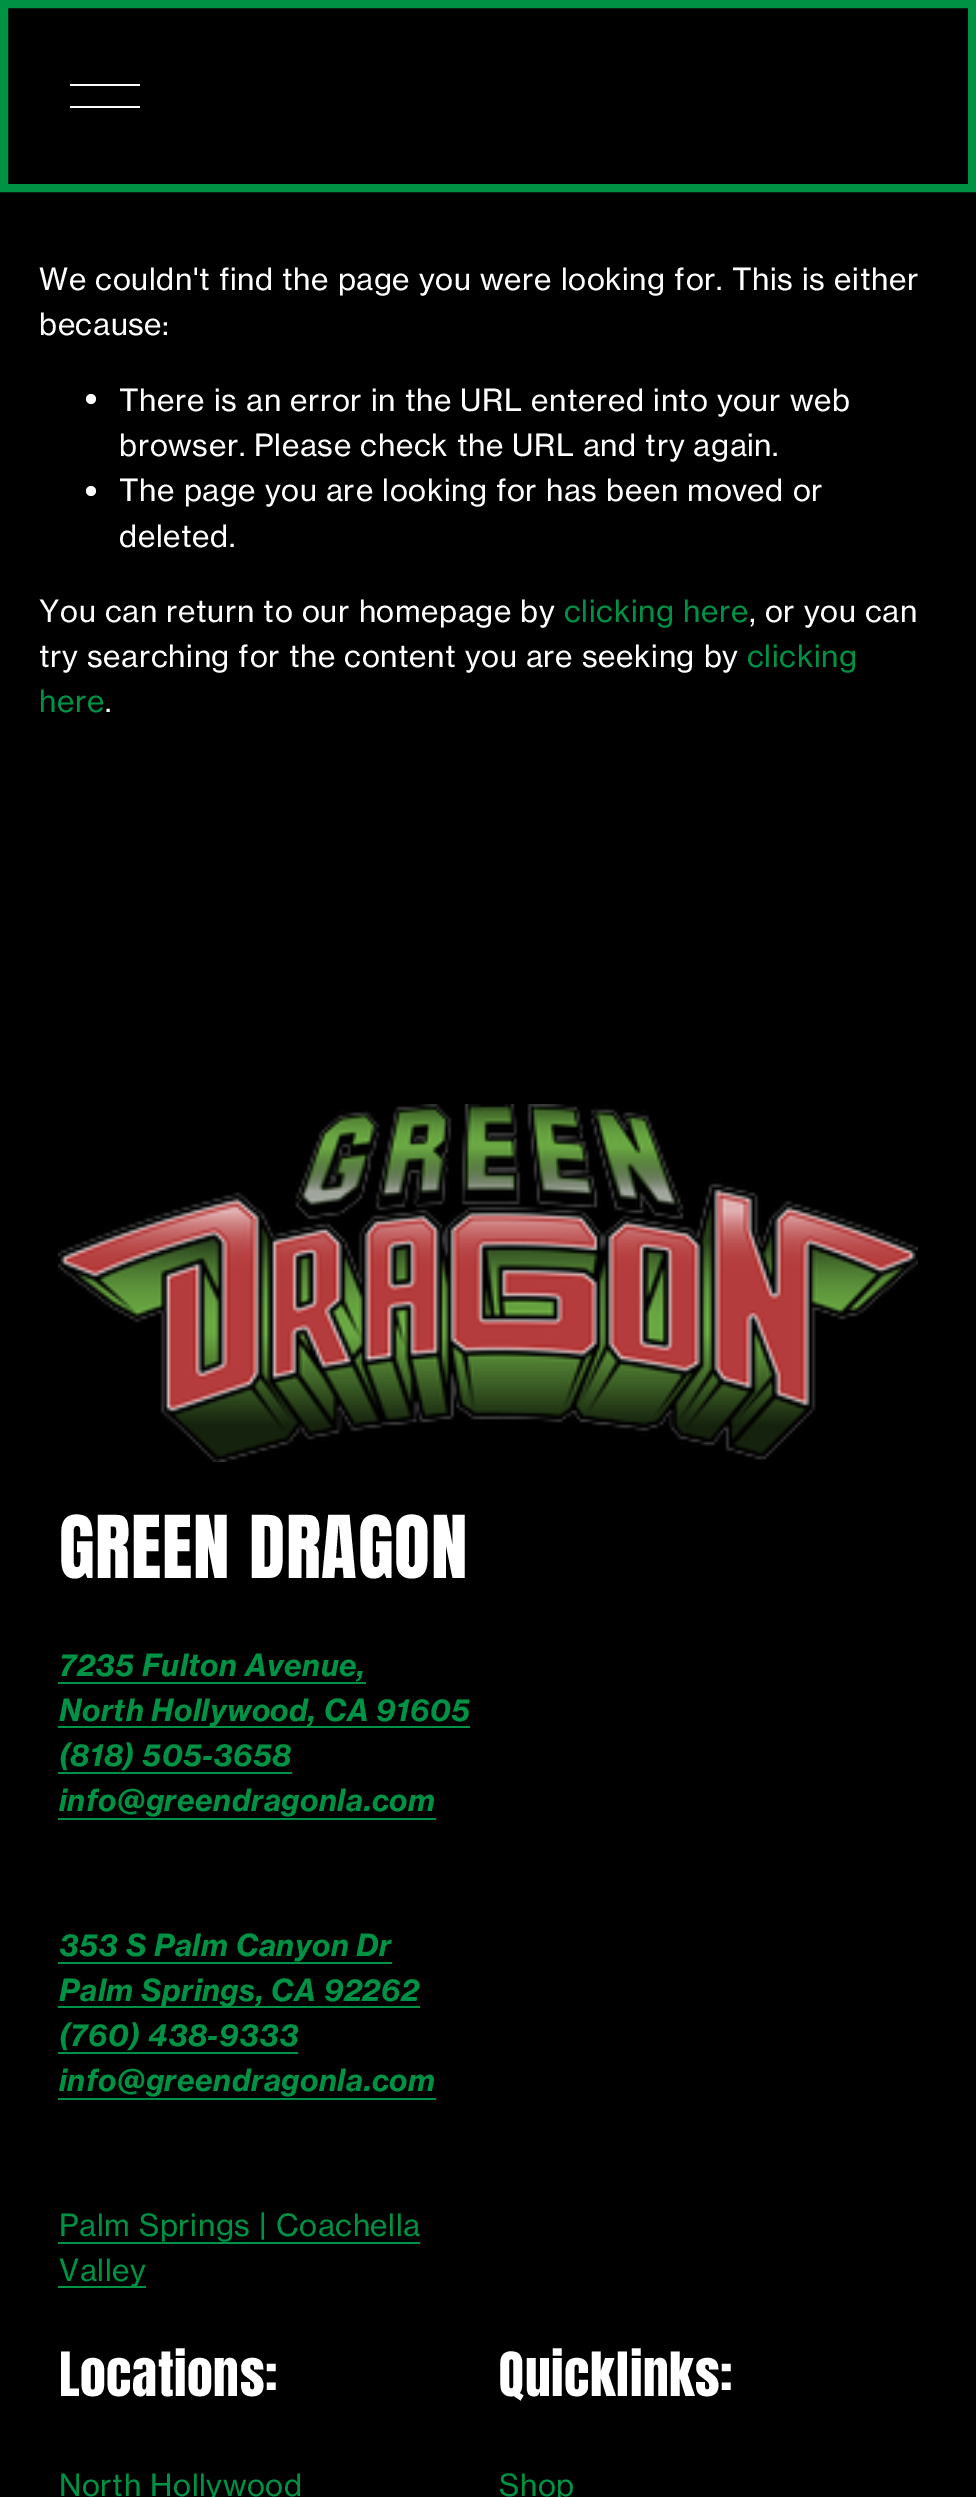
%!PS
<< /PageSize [976 2497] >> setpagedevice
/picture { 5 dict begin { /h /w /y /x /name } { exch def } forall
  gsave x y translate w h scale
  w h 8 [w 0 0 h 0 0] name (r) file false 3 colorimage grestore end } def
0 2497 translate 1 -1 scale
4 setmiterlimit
0 setgray
0 0 976 2497 rectfill
0 0.573 0.267 setrgbcolor
8 setlinewidth
4 4 968 184 rectstroke
1 setgray
70 84 70 2 rectfill
70 106 70 2 rectfill
/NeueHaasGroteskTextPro-Regular [30.15 0 0 -30.15 0 0] selectfont
39 290 moveto 0.6 0 (We couldn't find the page you were looking for. This is either) ashow
39 335 moveto 0.6 0 (because:) ashow
newpath 91 399 5 0 360 arc closepath fill
119 411 moveto 0.6 0 (There is an error in the URL entered into your web) ashow
119 456 moveto 0.6 0 (browser. Please check the URL and try again.) ashow
newpath 91 491 5 0 360 arc closepath fill
119 501 moveto 0.6 0 (The page you are looking for has been moved or) ashow
119 547 moveto 0.6 0 (deleted.) ashow
39 622 moveto 0.6 0 (You can return to our homepage by) ashow
0 0.573 0.267 setrgbcolor
564 622 moveto 0.6 0 (clicking here) ashow
1 setgray
749 622 moveto 0.6 0 (, or you can) ashow
39 667 moveto 0.6 0 (try searching for the content you are seeking by) ashow
0 0.573 0.267 setrgbcolor
747 667 moveto 0.6 0 (clicking) ashow
39 712 moveto 0.6 0 (here) ashow
1 setgray
105 712 moveto 0.6 0 (.) ashow
(img1.rgb) 58 1104 860 358 picture
/Anton-Regular [73.5 0 0 -73.5 0 0] selectfont
59 1578 moveto 0.75 0 (GREEN DRAGON) ashow
/NeueHaasGroteskTextPro-BoldItalic [30.15 0 0 -30.15 0 0] selectfont
0 0.573 0.267 setrgbcolor
59 1676 moveto 0.6 0 (7235 Fulton Avenue,) ashow
58 1682 308 2 rectfill
58 1726 412 2 rectfill
59 1721 moveto 0.6 0 (North Hollywood, CA 91605) ashow
59 1766 moveto 0.6 0 (\(818\) 505-3658) ashow
58 1772 234 2 rectfill
59 1811 moveto 0.6 0 (info@greendragonla.com) ashow
58 1818 378 2 rectfill
59 1956 moveto 0.6 0 (353 S Palm Canyon Dr) ashow
58 1962 334 2 rectfill
58 2006 362 2 rectfill
59 2001 moveto 0.6 0 (Palm Springs, CA 92262) ashow
59 2046 moveto 0.6 0 (\(760\) 438-9333) ashow
58 2052 240 2 rectfill
59 2091 moveto 0.6 0 (info@greendragonla.com) ashow
58 2098 378 2 rectfill
/NeueHaasGroteskTextPro-Regular [30.15 0 0 -30.15 0 0] selectfont
59 2236 moveto 0.6 0 (Palm Springs | Coachella) ashow
58 2242 362 2 rectfill
58 2286 88 2 rectfill
59 2281 moveto 0.6 0 (Valley) ashow
/Anton-Regular [51.75 0 0 -51.75 0 0] selectfont
1 setgray
59 2396 moveto 0.5 0 (Locations:) ashow
/NeueHaasGroteskTextPro-Regular [30.15 0 0 -30.15 0 0] selectfont
0 0.573 0.267 setrgbcolor
59 2496 moveto 0.6 0 (North Hollywood) ashow
/Anton-Regular [51.75 0 0 -51.75 0 0] selectfont
1 setgray
499 2396 moveto 0.5 0 (Quicklinks:) ashow
/NeueHaasGroteskTextPro-Regular [30.15 0 0 -30.15 0 0] selectfont
0 0.573 0.267 setrgbcolor
499 2496 moveto 0.6 0 (Shop) ashow
showpage
